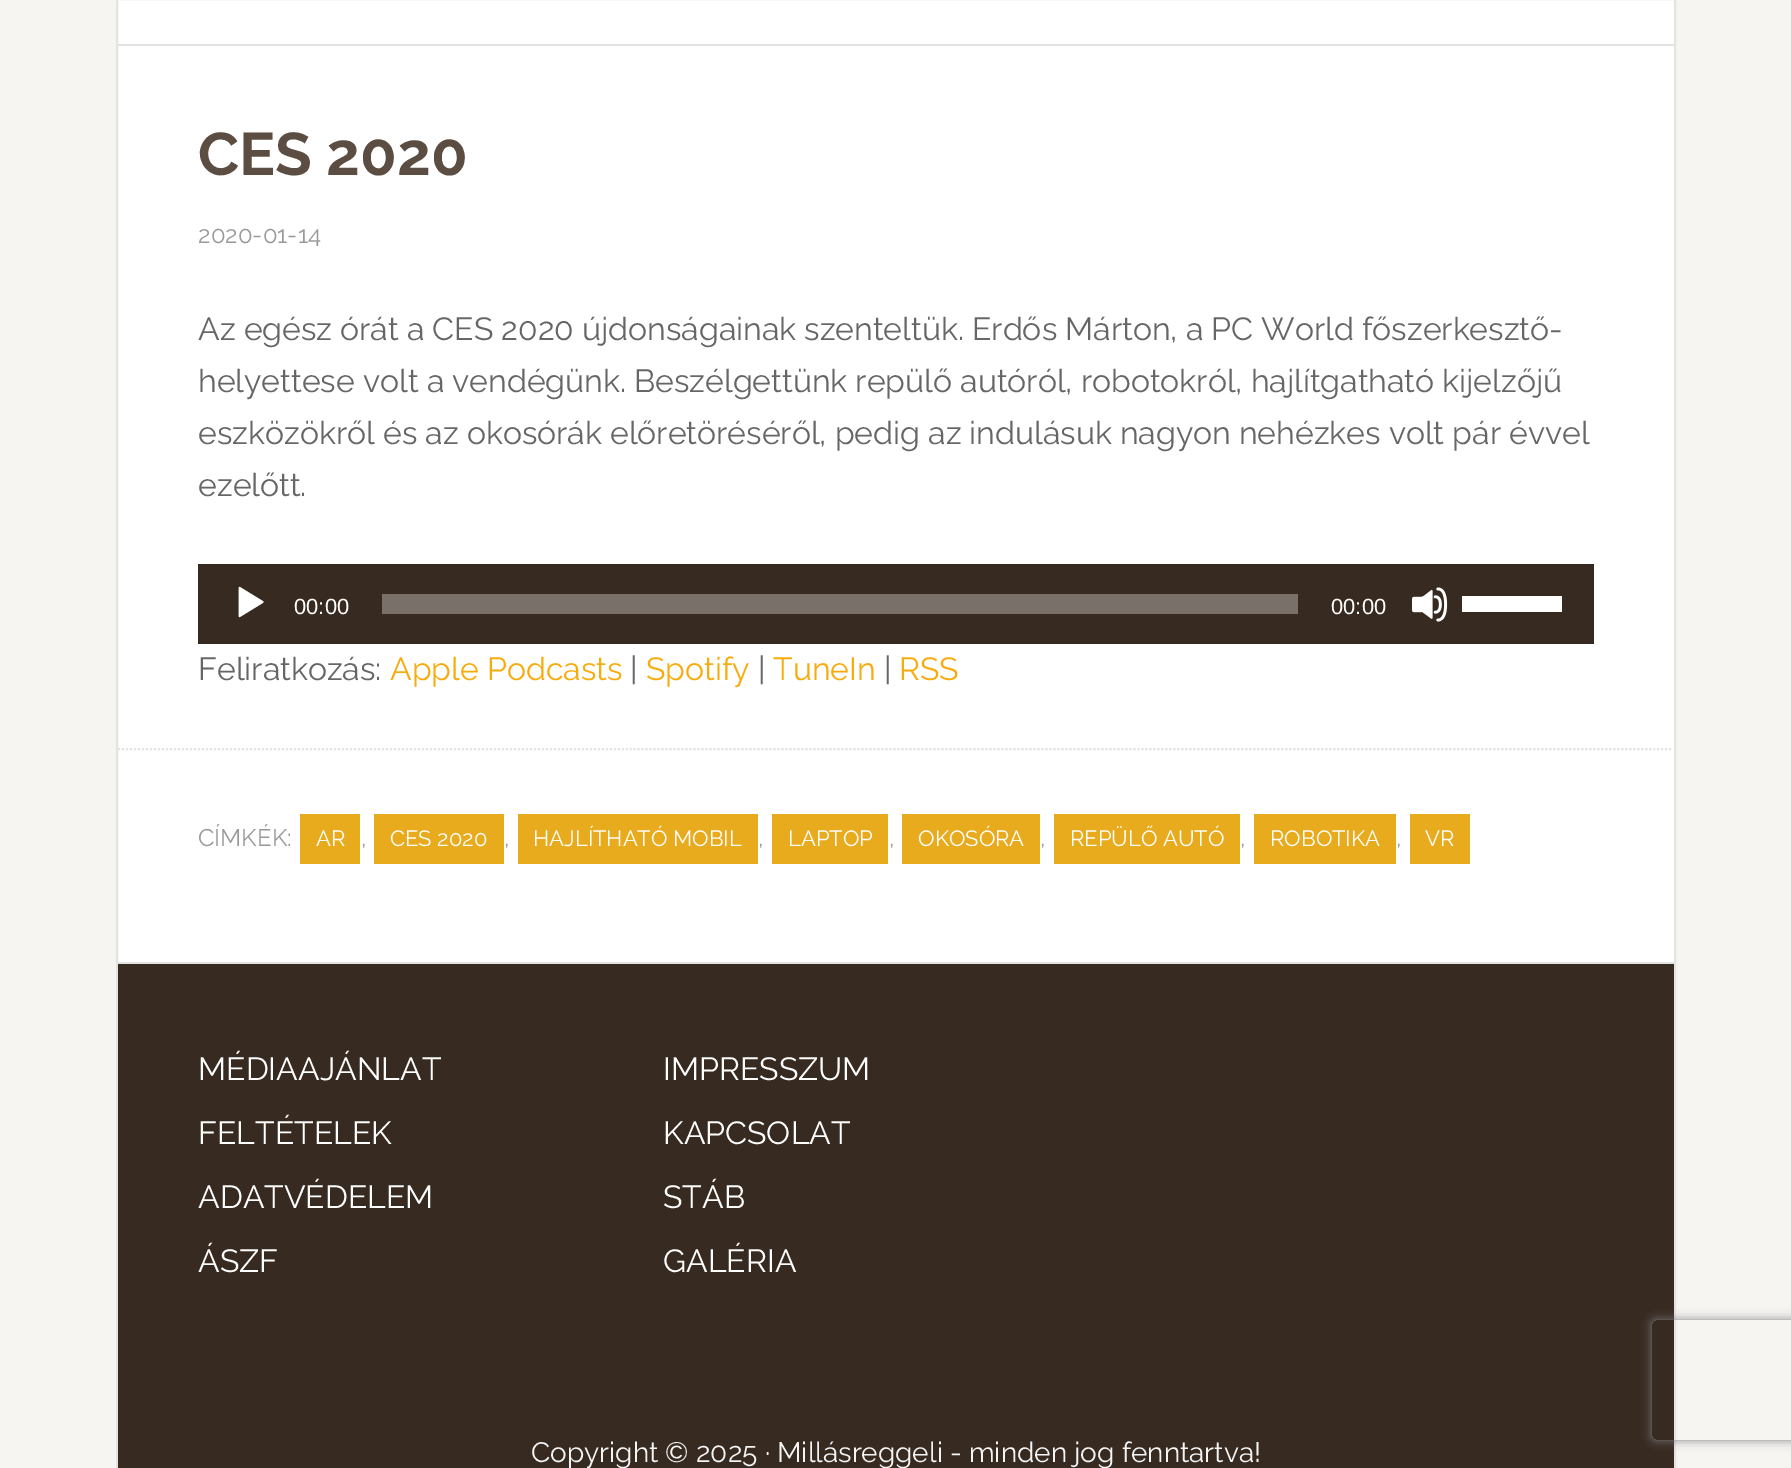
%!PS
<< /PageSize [1791 1468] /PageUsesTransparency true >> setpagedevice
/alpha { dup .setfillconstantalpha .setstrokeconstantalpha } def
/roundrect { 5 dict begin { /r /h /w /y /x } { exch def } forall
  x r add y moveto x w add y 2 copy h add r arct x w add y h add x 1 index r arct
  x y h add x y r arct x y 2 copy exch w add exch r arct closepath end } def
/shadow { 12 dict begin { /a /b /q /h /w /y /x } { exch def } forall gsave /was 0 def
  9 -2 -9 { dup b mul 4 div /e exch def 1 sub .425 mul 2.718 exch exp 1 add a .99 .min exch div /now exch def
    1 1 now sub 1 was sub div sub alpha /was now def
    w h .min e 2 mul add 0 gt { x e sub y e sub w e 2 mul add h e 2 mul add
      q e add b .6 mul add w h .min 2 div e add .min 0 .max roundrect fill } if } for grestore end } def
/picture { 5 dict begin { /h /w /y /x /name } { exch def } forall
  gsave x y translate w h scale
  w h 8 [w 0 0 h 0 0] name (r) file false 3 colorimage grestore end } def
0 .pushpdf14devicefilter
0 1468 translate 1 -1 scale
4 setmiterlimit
0.965 0.961 0.949 setrgbcolor
0 0 1791 1468 rectfill
1 setgray
118 0 1556 962 rectfill
0.89 setgray
2 setlinewidth
117 -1 1558 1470 rectstroke
118 44 1556 2 rectfill
118 962 1556 2 rectfill
/Raleway-Bold [60 0 0 -60 0 0] selectfont
0.357 0.302 0.259 setrgbcolor
198 175 moveto (CES 2020) show
/Raleway-Regular [24 0 0 -24 0 0] selectfont
0.6 setgray
198 243 moveto (2020-01-14) show
/Raleway-Regular [32 0 0 -32 0 0] selectfont
0.4 setgray
198 340 moveto (Az egész órát a CES 2020 újdonságainak szenteltük. Erdős Márton, a PC World főszerkesztő-) show
198 392 moveto (helyettese volt a vendégünk. Beszélgettünk repülő autóról, robotokról, hajlítgatható kijelzőjű) show
198 444 moveto (eszközökről és az okosórák előretöréséről, pedig az indulásuk nagyon nehézkes volt pár évvel) show
198 496 moveto (ezelőtt.) show
0.216 0.165 0.129 setrgbcolor
198 564 1396 80 rectfill
(img1.rgb) 238 586 26 32 picture
/LiberationSans-Regular [22 0 0 -22 0 0] selectfont
1 setgray
294 614 moveto (00:00) show
0.475 0.439 0.416 setrgbcolor
382 594 916 20 rectfill
1 setgray
1331 614 moveto (00:00) show
(img2.rgb) 1412 587 36 35 picture
1462 596 100 16 rectfill
/Raleway-Regular [32 0 0 -32 0 0] selectfont
0.4 setgray
198 680 moveto (Feliratkozás:) show
0.969 0.671 0.051 setrgbcolor
390 680 moveto (Apple Podcasts) show
0.4 setgray
630 680 moveto (|) show
0.969 0.671 0.051 setrgbcolor
646 680 moveto (Spotify) show
0.4 setgray
758 680 moveto (|) show
0.969 0.671 0.051 setrgbcolor
773 680 moveto (TuneIn) show
0.4 setgray
884 680 moveto (|) show
0.969 0.671 0.051 setrgbcolor
899 680 moveto (RSS) show
0.89 setgray
[2 2] 0 setdash
newpath 118 749 moveto 1674 749 lineto stroke
/Raleway-Regular [24 0 0 -24 0 0] selectfont
0.6 setgray
198 846 moveto (CÍMKÉK:) show
0.91 0.671 0.114 setrgbcolor
300 814 60 50 rectfill
/Raleway-Regular [22 0 0 -22 0 0] selectfont
1 setgray
316 846 moveto (AR) show
/Raleway-Regular [24 0 0 -24 0 0] selectfont
0.6 setgray
361 846 moveto (,) show
0.91 0.671 0.114 setrgbcolor
374 814 130 50 rectfill
/Raleway-Regular [22 0 0 -22 0 0] selectfont
1 setgray
390 846 moveto (CES 2020) show
/Raleway-Regular [24 0 0 -24 0 0] selectfont
0.6 setgray
504 846 moveto (,) show
0.91 0.671 0.114 setrgbcolor
518 814 240 50 rectfill
/Raleway-Regular [22 0 0 -22 0 0] selectfont
1 setgray
533 846 moveto (HAJLÍTHATÓ MOBIL) show
/Raleway-Regular [24 0 0 -24 0 0] selectfont
0.6 setgray
758 846 moveto (,) show
0.91 0.671 0.114 setrgbcolor
772 814 116 50 rectfill
/Raleway-Regular [22 0 0 -22 0 0] selectfont
1 setgray
788 846 moveto (LAPTOP) show
/Raleway-Regular [24 0 0 -24 0 0] selectfont
0.6 setgray
889 846 moveto (,) show
0.91 0.671 0.114 setrgbcolor
902 814 138 50 rectfill
/Raleway-Regular [22 0 0 -22 0 0] selectfont
1 setgray
918 846 moveto (OKOSÓRA) show
/Raleway-Regular [24 0 0 -24 0 0] selectfont
0.6 setgray
1040 846 moveto (,) show
0.91 0.671 0.114 setrgbcolor
1054 814 186 50 rectfill
/Raleway-Regular [22 0 0 -22 0 0] selectfont
1 setgray
1070 846 moveto (REPÜLŐ AUTÓ) show
/Raleway-Regular [24 0 0 -24 0 0] selectfont
0.6 setgray
1240 846 moveto (,) show
0.91 0.671 0.114 setrgbcolor
1254 814 142 50 rectfill
/Raleway-Regular [22 0 0 -22 0 0] selectfont
1 setgray
1270 846 moveto (ROBOTIKA) show
/Raleway-Regular [24 0 0 -24 0 0] selectfont
0.6 setgray
1396 846 moveto (,) show
0.91 0.671 0.114 setrgbcolor
1410 814 60 50 rectfill
/Raleway-Regular [22 0 0 -22 0 0] selectfont
1 setgray
1425 846 moveto (VR) show
0.216 0.165 0.129 setrgbcolor
118 964 1556 504 rectfill
/Raleway-Regular [32 0 0 -32 0 0] selectfont
1 setgray
198 1080 moveto (MÉDIAAJÁNLAT) show
198 1144 moveto (FELTÉTELEK) show
198 1208 moveto (ADATVÉDELEM) show
198 1272 moveto (ÁSZF) show
663 1080 moveto (IMPRESSZUM) show
663 1144 moveto (KAPCSOLAT) show
663 1208 moveto (STÁB) show
663 1272 moveto (GALÉRIA) show
/Raleway-Regular [28 0 0 -28 0 0] selectfont
0.961 setgray
531 1462 moveto (Copyright © 2025 · Millásreggeli - minden jog fenntartva!) show
gsave
newpath 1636 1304 moveto 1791 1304 lineto 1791 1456 lineto 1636 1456 lineto closepath 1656 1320 moveto 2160 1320 lineto 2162 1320 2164 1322 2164 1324 curveto 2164 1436 lineto 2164 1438 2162 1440 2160 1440 curveto 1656 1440 lineto 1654 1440 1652 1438 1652 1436 curveto 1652 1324 lineto 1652 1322 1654 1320 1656 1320 curveto closepath eoclip newpath
0.502 setgray
1652 1320 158 120 4 5 1 shadow
grestore
.poppdf14devicefilter showpage
